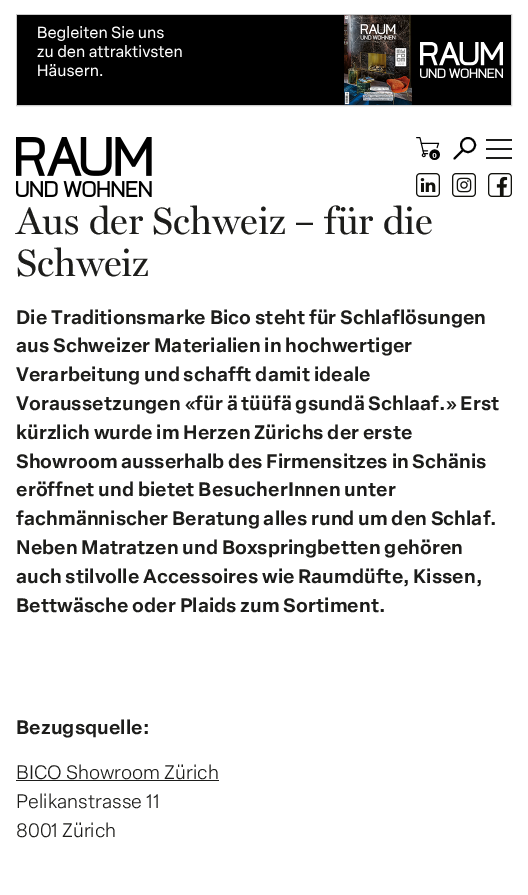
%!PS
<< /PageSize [528 895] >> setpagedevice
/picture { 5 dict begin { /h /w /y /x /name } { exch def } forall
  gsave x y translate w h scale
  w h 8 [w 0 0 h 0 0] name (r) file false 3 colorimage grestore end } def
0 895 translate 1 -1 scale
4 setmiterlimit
1 setgray
0 0 528 895 rectfill
0.8 setgray
16.5 14.5 495 91 rectstroke
(img1.rgb) 17 15 494 90 picture
(img2.rgb) 16 137 136 60 picture
(img3.rgb) 416 137 24 23 picture
0 setgray
1.9 setlinewidth
newpath 468 145 7 0 360 arc closepath stroke
1 setlinecap
1 setlinejoin
newpath 462.5 150.5 moveto 454.5 158.5 lineto stroke
0.114 0.114 0.106 setrgbcolor
486 139 26 2 rectfill
486 148 26 2 rectfill
486 157 26 2 rectfill
(img4.rgb) 416 173 24 24 picture
(img5.rgb) 452 173 24 24 picture
(img6.rgb) 488 173 24 24 picture
/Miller-Medium [38.4 0 0 -38.4 0 0] selectfont
16 234 moveto (Aus der Schweiz – für die) show
16 276 moveto (Schweiz) show
/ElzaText-SemiBold [19.2 0 0 -19.2 0 0] selectfont
16 324 moveto (Die Traditionsmarke Bico steht für Schlaflösungen) show
16 352 moveto (aus Schweizer Materialien in hochwertiger) show
16 381 moveto (Verarbeitung und schafft damit ideale) show
16 410 moveto (Voraussetzungen «für ä tüüfä gsundä Schlaaf.» Erst) show
16 439 moveto (kürzlich wurde im Herzen Zürichs der erste) show
16 468 moveto (Showroom ausserhalb des Firmensitzes in Schänis) show
16 496 moveto (eröffnet und bietet BesucherInnen unter) show
16 525 moveto (fachmännischer Beratung alles rund um den Schlaf.) show
16 554 moveto (Neben Matratzen und Boxspringbetten gehören) show
16 583 moveto (auch stilvolle Accessoires wie Raumdüfte, Kissen,) show
16 612 moveto (Bettwäsche oder Plaids zum Sortiment.) show
16 734 moveto (Bezugsquelle:) show
/ElzaText-Light [19.2 0 0 -19.2 0 0] selectfont
16 779 moveto (BICO Showroom Zürich) show
16 780 203 1 rectfill
16 808 moveto (Pelikanstrasse 11) show
16 837 moveto (8001 Zürich) show
showpage
